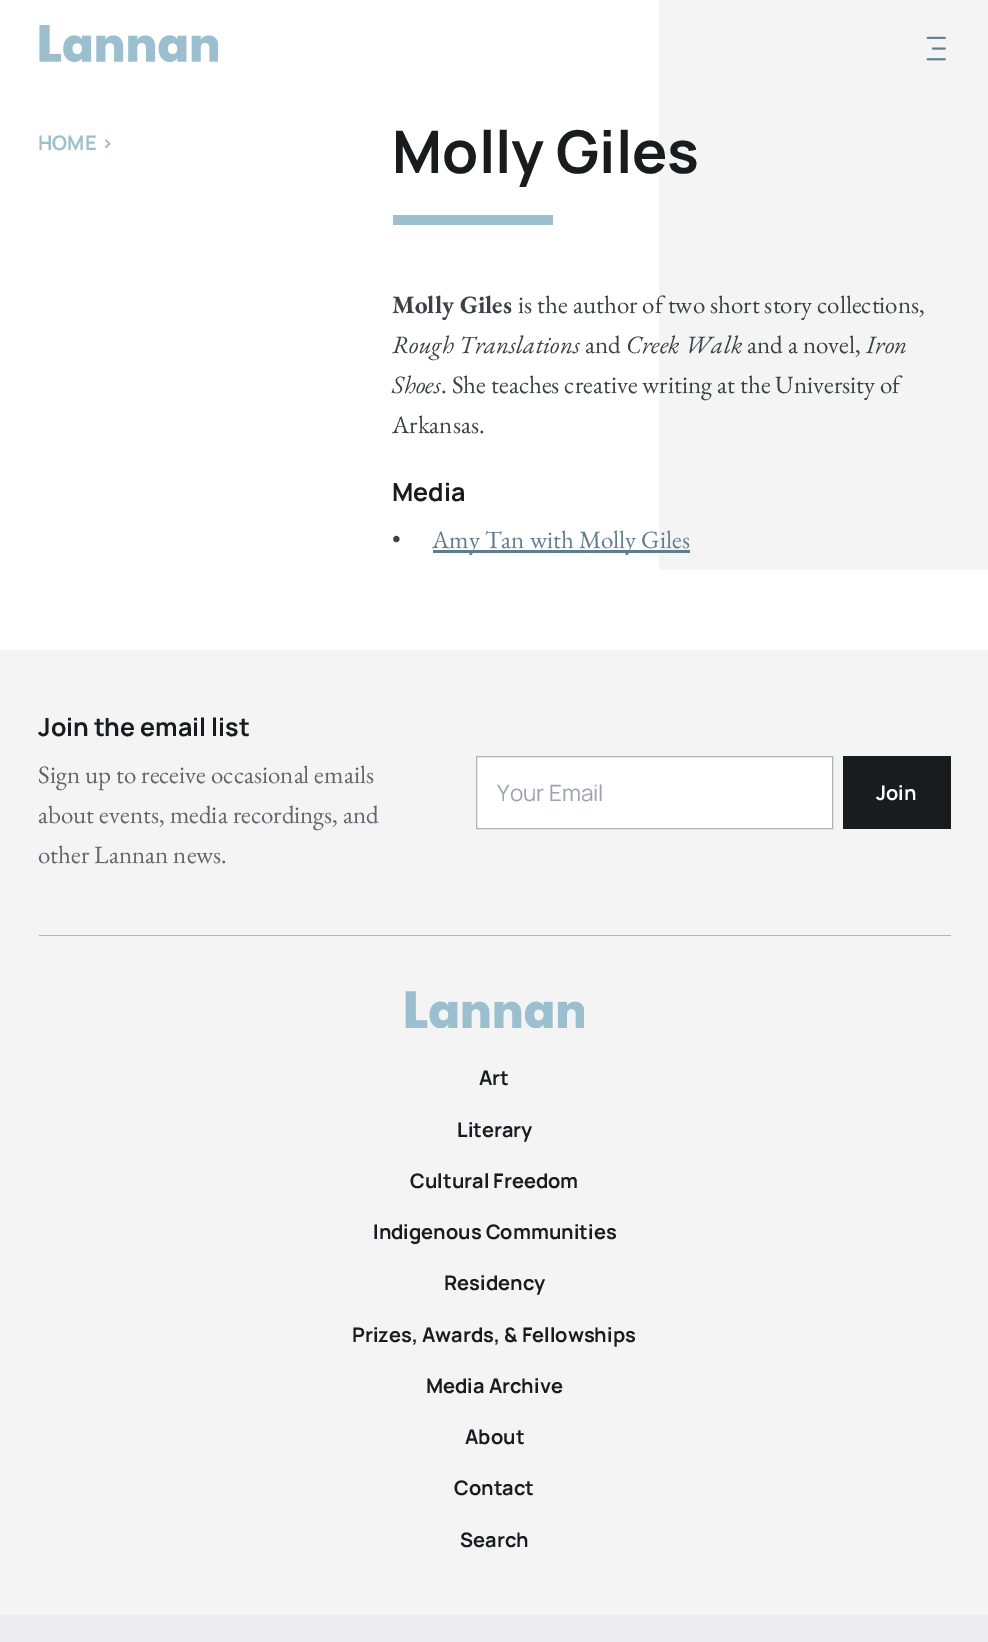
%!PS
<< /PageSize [988 1642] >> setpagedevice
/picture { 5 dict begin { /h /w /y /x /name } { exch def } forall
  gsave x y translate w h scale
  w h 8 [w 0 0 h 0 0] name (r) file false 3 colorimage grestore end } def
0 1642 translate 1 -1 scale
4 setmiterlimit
1 setgray
0 0 988 1642 rectfill
(img1.rgb) 39 25 179 37 picture
0.957 0.957 0.961 setrgbcolor
659 0 329 570 rectfill
(img2.rgb) 926 36 20 25 picture
/Manrope-Bold [20 0 0 -20 0 0] selectfont
0.612 0.749 0.812 setrgbcolor
38 150 moveto (HOME) show
101 150 moveto (>) show
/Manrope-Bold [58.75 0 0 -58.75 0 0] selectfont
0.102 0.106 0.118 setrgbcolor
392 173 moveto (Molly Giles) show
0.612 0.749 0.812 setrgbcolor
393 215 160 10 rectfill
/EBGaramond-Bold [25 0 0 -25 0 0] selectfont
0.243 0.251 0.278 setrgbcolor
392 313 moveto (Molly Giles) show
/EBGaramond-Regular [25 0 0 -25 0 0] selectfont
518 313 moveto (is the author of two short story collections,) show
/EBGaramond-Italic [25 0 0 -25 0 0] selectfont
392 353 moveto (Rough Translations) show
/EBGaramond-Regular [25 0 0 -25 0 0] selectfont
585 353 moveto (and) show
/EBGaramond-Italic [25 0 0 -25 0 0] selectfont
626 353 moveto (Creek Walk) show
/EBGaramond-Regular [25 0 0 -25 0 0] selectfont
747 353 moveto (and a novel,) show
/EBGaramond-Italic [25 0 0 -25 0 0] selectfont
866 353 moveto (Iron) show
392 393 moveto (Shoes) show
/EBGaramond-Regular [25 0 0 -25 0 0] selectfont
441 393 moveto (. She teaches creative writing at the University of) show
392 433 moveto (Arkansas.) show
/Manrope-Bold [25 0 0 -25 0 0] selectfont
0.102 0.106 0.118 setrgbcolor
392 501 moveto (Media) show
/EBGaramond-Regular [25 0 0 -25 0 0] selectfont
0.243 0.251 0.278 setrgbcolor
392 548 moveto (•) show
0.376 0.49 0.545 setrgbcolor
433 550 257 3 rectfill
432 548 moveto (Amy Tan with Molly Giles) show
0.957 0.957 0.961 setrgbcolor
0 650 988 965 rectfill
0.69 0.698 0.729 setrgbcolor
39 935 912 1 rectfill
/Manrope-Bold [25 0 0 -25 0 0] selectfont
0.102 0.106 0.118 setrgbcolor
38 736 moveto (Join the email list) show
/EBGaramond-Regular [25 0 0 -25 0 0] selectfont
0.384 0.392 0.416 setrgbcolor
38 783 moveto (Sign up to receive occasional emails) show
38 823 moveto (about events, media recordings, and) show
38 863 moveto (other Lannan news.) show
1 setgray
newpath 476.5 756.5 moveto 832.5 756.5 lineto 832.5 828.5 lineto 476.5 828.5 lineto closepath gsave fill grestore
0.69 0.698 0.729 setrgbcolor
stroke
/Manrope-Regular [22.5 0 0 -22.5 0 0] selectfont
0.612 0.639 0.686 setrgbcolor
497 801 moveto (Your Email) show
0.102 0.106 0.118 setrgbcolor
843 756 108 73 rectfill
/Manrope-Bold [20 0 0 -20 0 0] selectfont
1 setgray
876 800 moveto (Join) show
(img3.rgb) 405 991 179 37 picture
0.102 0.106 0.118 setrgbcolor
479 1085 moveto (Art) show
457 1137 moveto (Literary) show
410 1188 moveto (Cultural Freedom) show
373 1239 moveto (Indigenous Communities) show
444 1290 moveto (Residency) show
352 1342 moveto (Prizes, Awards, & Fellowships) show
426 1393 moveto (Media Archive) show
465 1444 moveto (About) show
454 1495 moveto (Contact) show
460 1547 moveto (Search) show
0.929 0.929 0.937 setrgbcolor
0 1615 988 27 rectfill
showpage
